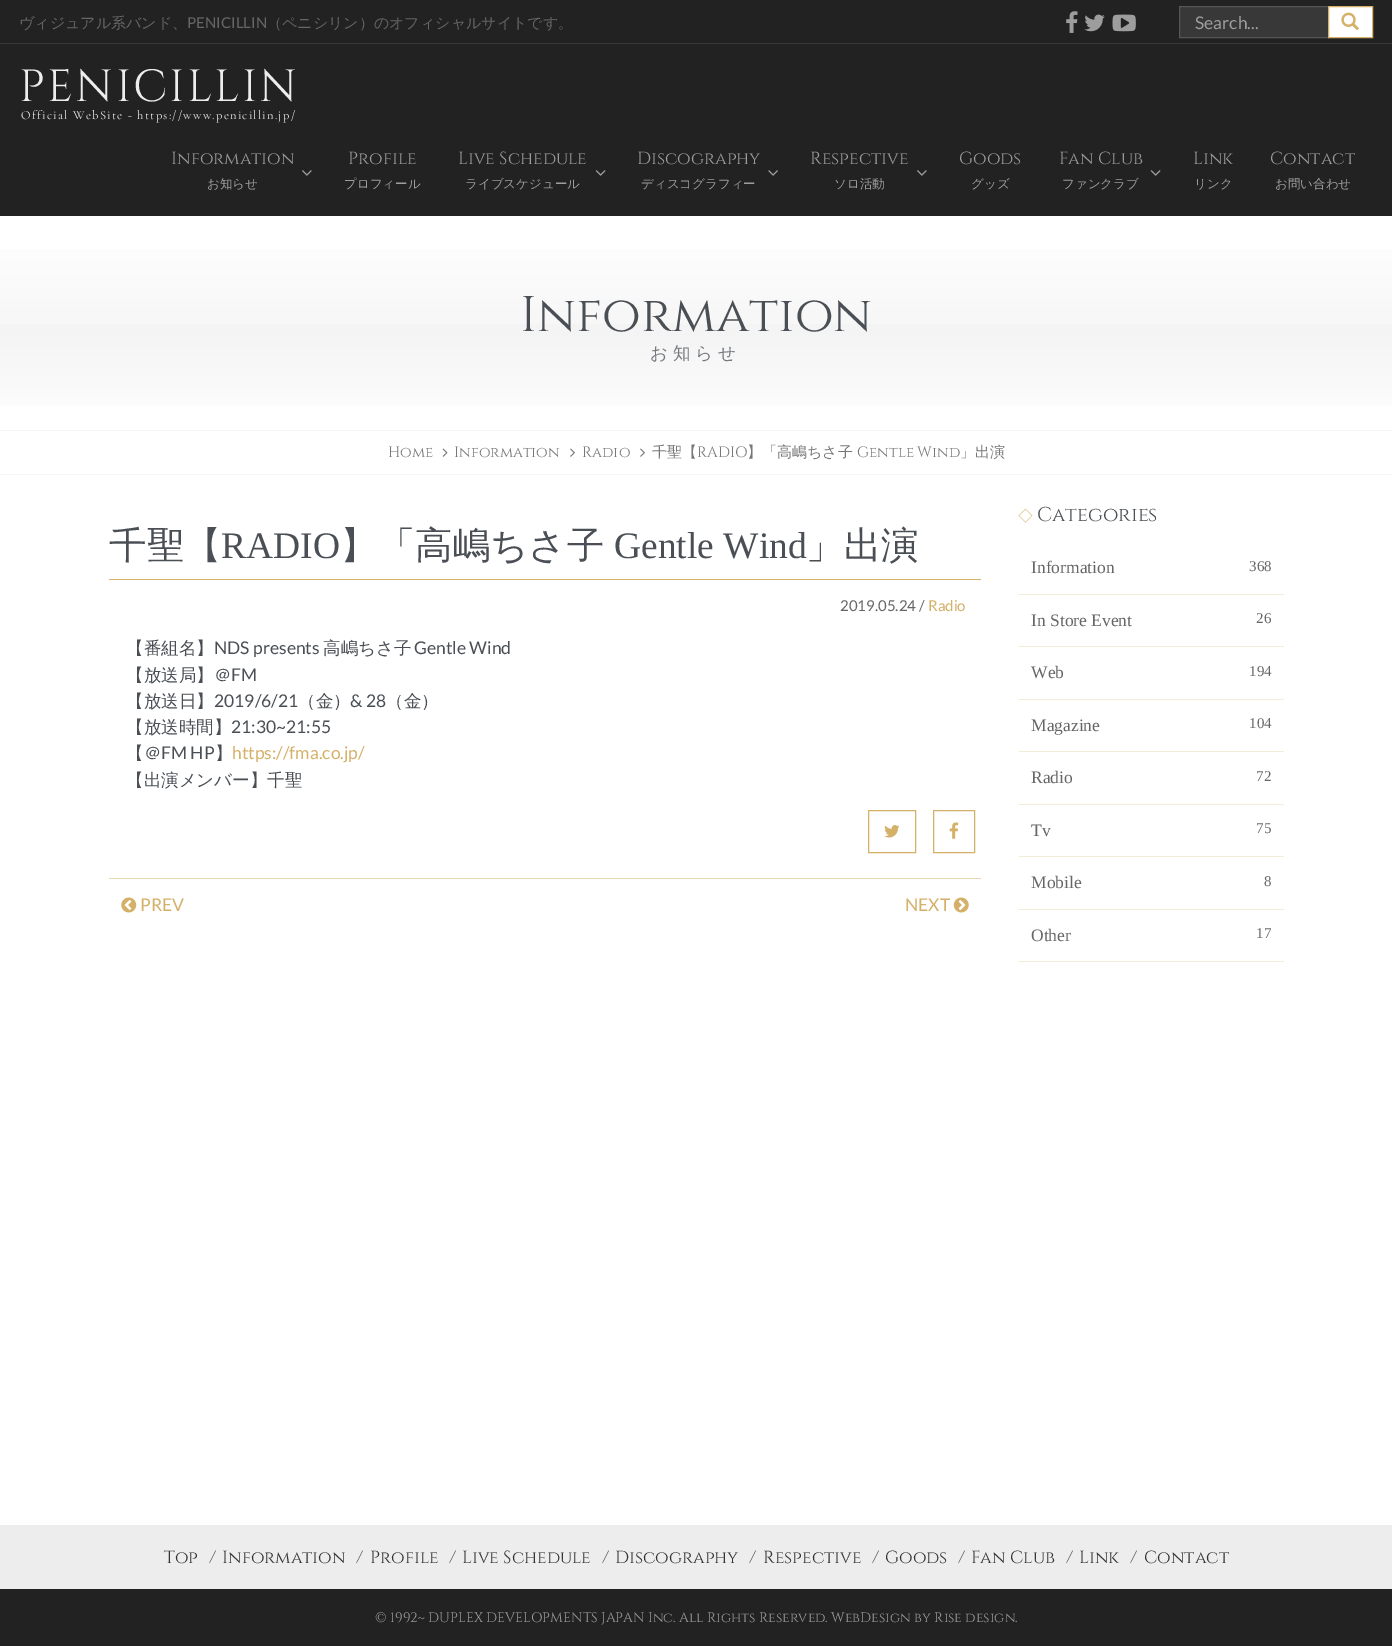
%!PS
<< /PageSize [1392 1646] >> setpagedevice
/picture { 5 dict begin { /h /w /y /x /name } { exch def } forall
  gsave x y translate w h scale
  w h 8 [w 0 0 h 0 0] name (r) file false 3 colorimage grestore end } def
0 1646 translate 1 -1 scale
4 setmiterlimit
1 setgray
0 0 1392 1646 rectfill
0.133 setgray
0 0 1392 216 rectfill
0.22 setgray
0 43 1392 1 rectfill
/WenQuanYiZenHei-Medium [15 0 0 -15 0 0] selectfont
0.4 setgray
19 28 moveto (ヴィジュアル系バンド、) show
/Lato-Regular [15 0 0 -15 0 0] selectfont
187 28 moveto (PENICILLIN) show
/WenQuanYiZenHei-Medium [15 0 0 -15 0 0] selectfont
267 28 moveto (（ペニシリン）のオフィシャルサイトです。) show
(img1.rgb) 1066 11 12 22 picture
(img2.rgb) 1084 14 21 18 picture
(img3.rgb) 1112 14 24 18 picture
0.22 setgray
newpath 1179.5 6.5 moveto 1328.5 6.5 lineto 1328.5 37.5 lineto 1179.5 37.5 lineto closepath gsave fill grestore
0.337 setgray
stroke
/Lato-Regular [17.5 0 0 -17.5 0 0] selectfont
0.616 setgray
1195 29 moveto (Search...) show
1 setgray
newpath 1328.5 6.5 moveto 1372.5 6.5 lineto 1372.5 37.5 lineto 1328.5 37.5 lineto closepath gsave fill grestore
0.831 0.69 0.408 setrgbcolor
stroke
(img4.rgb) 1341 12 18 18 picture
/Cinzel-Regular [45 0 0 -45 0 0] selectfont
0.929 setgray
19 101 moveto 2.25 0 (PENICILLIN) ashow
/CormorantGaramond-Regular [12.5 0 0 -12.5 0 0] selectfont
21 119 moveto 1.25 0 (Official WebSite - https://www.penicillin.jp/) ashow
/Cinzel-Regular [17.5 0 0 -17.5 0 0] selectfont
0.616 setgray
171 164 moveto (Information) show
/WenQuanYiZenHei-Medium [12.5 0 0 -12.5 0 0] selectfont
207 188 moveto (お知らせ) show
(img5.rgb) 302 170 10 6 picture
/Cinzel-Regular [17.5 0 0 -17.5 0 0] selectfont
348 164 moveto (Profile) show
/WenQuanYiZenHei-Medium [12.5 0 0 -12.5 0 0] selectfont
344 188 moveto (プロフィール) show
/Cinzel-Regular [17.5 0 0 -17.5 0 0] selectfont
458 164 moveto (Live Schedule) show
/WenQuanYiZenHei-Medium [12.5 0 0 -12.5 0 0] selectfont
465 188 moveto (ライブスケジュール) show
(img6.rgb) 595 170 11 6 picture
/Cinzel-Regular [17.5 0 0 -17.5 0 0] selectfont
637 164 moveto (Discography) show
/WenQuanYiZenHei-Medium [12.5 0 0 -12.5 0 0] selectfont
641 188 moveto (ディスコグラフィー) show
(img7.rgb) 768 170 10 6 picture
/Cinzel-Regular [17.5 0 0 -17.5 0 0] selectfont
810 164 moveto (Respective) show
/WenQuanYiZenHei-Medium [12.5 0 0 -12.5 0 0] selectfont
834 188 moveto (ソロ活動) show
(img5.rgb) 917 170 10 6 picture
/Cinzel-Regular [17.5 0 0 -17.5 0 0] selectfont
959 164 moveto (Goods) show
/WenQuanYiZenHei-Medium [12.5 0 0 -12.5 0 0] selectfont
971 188 moveto (グッズ) show
/Cinzel-Regular [17.5 0 0 -17.5 0 0] selectfont
1059 164 moveto (Fan Club) show
/WenQuanYiZenHei-Medium [12.5 0 0 -12.5 0 0] selectfont
1062 188 moveto (ファンクラブ) show
(img6.rgb) 1150 170 11 6 picture
/Cinzel-Regular [17.5 0 0 -17.5 0 0] selectfont
1193 164 moveto (Link) show
/WenQuanYiZenHei-Medium [12.5 0 0 -12.5 0 0] selectfont
1194 188 moveto (リンク) show
/Cinzel-Regular [17.5 0 0 -17.5 0 0] selectfont
1270 164 moveto (Contact) show
/WenQuanYiZenHei-Medium [12.5 0 0 -12.5 0 0] selectfont
1275 188 moveto (お問い合わせ) show
gsave newpath 0 249 moveto 1392 249 lineto 1392 406 lineto 0 406 lineto closepath clip newpath
<< /ShadingType 2 /ColorSpace /DeviceRGB /Coords [696 216 696 430] /Extend [true true] /Function << /FunctionType 3 /Domain [0 1] /Functions [<< /FunctionType 2 /Domain [0 1] /C0 [1 1 1] /C1 [0.969 0.969 0.969] /N 1 >> << /FunctionType 2 /Domain [0 1] /C0 [0.969 0.969 0.969] /C1 [0.957 0.957 0.957] /N 1 >> << /FunctionType 2 /Domain [0 1] /C0 [0.957 0.957 0.957] /C1 [1 1 1] /N 1 >>] /Bounds [0.5 0.51] /Encode [0 1 0 1 0 1] >> >> shfill grestore
0.961 setgray
0 430 1392 1 rectfill
/Cinzel-Regular [50 0 0 -50 0 0] selectfont
0.29 0.31 0.333 setrgbcolor
520 331 moveto (Information) show
/WenQuanYiZenHei-Medium [17.5 0 0 -17.5 0 0] selectfont
0.459 0.475 0.494 setrgbcolor
650 359 moveto 5 0 (お知らせ) ashow
0.961 setgray
0 474 1392 1 rectfill
/Cinzel-Regular [15 0 0 -15 0 0] selectfont
0.467 setgray
388 457 moveto (Home) show
(img8.rgb) 442 448 6 9 picture
454 457 moveto (Information) show
(img9.rgb) 570 448 5 9 picture
582 457 moveto (Radio) show
(img9.rgb) 640 448 5 9 picture
/WenQuanYiZenHei-Medium [15 0 0 -15 0 0] selectfont
652 457 moveto (千聖【) show
/Cinzel-Regular [15 0 0 -15 0 0] selectfont
697 457 moveto (RADIO) show
/WenQuanYiZenHei-Medium [15 0 0 -15 0 0] selectfont
747 457 moveto (】「高嶋ちさ子) show
/Cinzel-Regular [15 0 0 -15 0 0] selectfont
857 457 moveto (Gentle Wind) show
/WenQuanYiZenHei-Medium [15 0 0 -15 0 0] selectfont
960 457 moveto (」出演) show
0.831 0.69 0.408 setrgbcolor
109 579 872 1 rectfill
/WenQuanYiZenHei-Medium [37.5 0 0 -37.5 0 0] selectfont
0.29 0.31 0.333 setrgbcolor
109 558 moveto (千聖【) show
/LiberationSerif-Regular [37.5 0 0 -37.5 0 0] selectfont
221 558 moveto (RADIO) show
/WenQuanYiZenHei-Medium [37.5 0 0 -37.5 0 0] selectfont
340 558 moveto (】「高嶋ちさ子) show
/LiberationSerif-Regular [37.5 0 0 -37.5 0 0] selectfont
614 558 moveto (Gentle Wind) show
/WenQuanYiZenHei-Medium [37.5 0 0 -37.5 0 0] selectfont
806 558 moveto (」出演) show
/Lato-Regular [15 0 0 -15 0 0] selectfont
0.4 setgray
840 611 moveto (2019.05.24 /) show
0.831 0.69 0.408 setrgbcolor
928 611 moveto (Radio) show
/WenQuanYiZenHei-Medium [17.5 0 0 -17.5 0 0] selectfont
0.29 0.31 0.333 setrgbcolor
126 654 moveto (【番組名】) show
/Lato-Regular [17.5 0 0 -17.5 0 0] selectfont
214 654 moveto (NDS presents) show
/WenQuanYiZenHei-Medium [17.5 0 0 -17.5 0 0] selectfont
323 654 moveto (高嶋ちさ子) show
/Lato-Regular [17.5 0 0 -17.5 0 0] selectfont
414 654 moveto (Gentle Wind) show
/WenQuanYiZenHei-Medium [17.5 0 0 -17.5 0 0] selectfont
126 681 moveto (【放送局】＠) show
/Lato-Regular [17.5 0 0 -17.5 0 0] selectfont
231 681 moveto (FM) show
/WenQuanYiZenHei-Medium [17.5 0 0 -17.5 0 0] selectfont
126 707 moveto (【放送日】) show
/Lato-Regular [17.5 0 0 -17.5 0 0] selectfont
214 707 moveto (2019/6/21) show
/WenQuanYiZenHei-Medium [17.5 0 0 -17.5 0 0] selectfont
298 707 moveto (（金）) show
/Lato-Regular [17.5 0 0 -17.5 0 0] selectfont
350 707 moveto (& 28) show
/WenQuanYiZenHei-Medium [17.5 0 0 -17.5 0 0] selectfont
386 707 moveto (（金）) show
126 733 moveto (【放送時間】) show
/Lato-Regular [17.5 0 0 -17.5 0 0] selectfont
231 733 moveto (21:30~21:55) show
/WenQuanYiZenHei-Medium [17.5 0 0 -17.5 0 0] selectfont
126 759 moveto (【＠) show
/Lato-Regular [17.5 0 0 -17.5 0 0] selectfont
161 759 moveto (FM HP) show
/WenQuanYiZenHei-Medium [17.5 0 0 -17.5 0 0] selectfont
215 759 moveto (】) show
/Lato-Regular [17.5 0 0 -17.5 0 0] selectfont
0.831 0.69 0.408 setrgbcolor
232 759 moveto (https://fma.co.jp/) show
/WenQuanYiZenHei-Medium [17.5 0 0 -17.5 0 0] selectfont
0.29 0.31 0.333 setrgbcolor
126 786 moveto (【出演メンバー】千聖) show
0.831 0.69 0.408 setrgbcolor
868.5 810.5 47 42 rectstroke
(img10.rgb) 884 825 16 13 picture
933.5 810.5 41 42 rectstroke
(img11.rgb) 949 822 10 17 picture
0.918 0.847 0.706 setrgbcolor
109 878 872 1 rectfill
(img12.rgb) 121 897 16 16 picture
/Lato-Regular [17.5 0 0 -17.5 0 0] selectfont
0.831 0.69 0.408 setrgbcolor
140 911 moveto (PREV) show
905 911 moveto (NEXT) show
(img13.rgb) 953 897 16 16 picture
/WenQuanYiZenHei-Medium [15 0 0 -15 0 0] selectfont
1018 521 moveto (◇) show
/Cinzel-Regular [20 0 0 -20 0 0] selectfont
0.29 0.31 0.333 setrgbcolor
1037 521 moveto (Categories) show
0.957 0.922 0.851 setrgbcolor
1019 594 265 1 rectfill
/LiberationSerif-Regular [17.5 0 0 -17.5 0 0] selectfont
0.4 setgray
1031 573 moveto (Information) show
/LiberationSerif-Regular [15 0 0 -15 0 0] selectfont
1249 571 moveto (368) show
0.957 0.922 0.851 setrgbcolor
1019 646 265 1 rectfill
/LiberationSerif-Regular [17.5 0 0 -17.5 0 0] selectfont
0.4 setgray
1031 626 moveto (In Store Event) show
/LiberationSerif-Regular [15 0 0 -15 0 0] selectfont
1256 623 moveto (26) show
0.957 0.922 0.851 setrgbcolor
1019 699 265 1 rectfill
/LiberationSerif-Regular [17.5 0 0 -17.5 0 0] selectfont
0.4 setgray
1031 678 moveto (Web) show
/LiberationSerif-Regular [15 0 0 -15 0 0] selectfont
1249 676 moveto (194) show
0.957 0.922 0.851 setrgbcolor
1019 751 265 1 rectfill
/LiberationSerif-Regular [17.5 0 0 -17.5 0 0] selectfont
0.4 setgray
1031 731 moveto (Magazine) show
/LiberationSerif-Regular [15 0 0 -15 0 0] selectfont
1249 728 moveto (104) show
0.957 0.922 0.851 setrgbcolor
1019 804 265 1 rectfill
/LiberationSerif-Regular [17.5 0 0 -17.5 0 0] selectfont
0.4 setgray
1031 783 moveto (Radio) show
/LiberationSerif-Regular [15 0 0 -15 0 0] selectfont
1256 781 moveto (72) show
0.957 0.922 0.851 setrgbcolor
1019 856 265 1 rectfill
/LiberationSerif-Regular [17.5 0 0 -17.5 0 0] selectfont
0.4 setgray
1031 836 moveto (Tv) show
/LiberationSerif-Regular [15 0 0 -15 0 0] selectfont
1256 833 moveto (75) show
0.957 0.922 0.851 setrgbcolor
1019 909 265 1 rectfill
/LiberationSerif-Regular [17.5 0 0 -17.5 0 0] selectfont
0.4 setgray
1031 888 moveto (Mobile) show
/LiberationSerif-Regular [15 0 0 -15 0 0] selectfont
1264 886 moveto (8) show
0.957 0.922 0.851 setrgbcolor
1019 961 265 1 rectfill
/LiberationSerif-Regular [17.5 0 0 -17.5 0 0] selectfont
0.4 setgray
1031 941 moveto (Other) show
/LiberationSerif-Regular [15 0 0 -15 0 0] selectfont
1256 938 moveto (17) show
0.929 setgray
0 1525 1392 64 rectfill
/Cinzel-Regular [17.5 0 0 -17.5 0 0] selectfont
0.2 setgray
164 1563 moveto (Top) show
0.29 0.31 0.333 setrgbcolor
209 1563 moveto (/) show
0.2 setgray
222 1563 moveto (Information) show
0.29 0.31 0.333 setrgbcolor
356 1563 moveto (/) show
0.2 setgray
370 1563 moveto (Profile) show
0.29 0.31 0.333 setrgbcolor
449 1563 moveto (/) show
0.2 setgray
462 1563 moveto (Live Schedule) show
0.29 0.31 0.333 setrgbcolor
602 1563 moveto (/) show
0.2 setgray
615 1563 moveto (Discography) show
0.29 0.31 0.333 setrgbcolor
749 1563 moveto (/) show
0.2 setgray
763 1563 moveto (Respective) show
0.29 0.31 0.333 setrgbcolor
872 1563 moveto (/) show
0.2 setgray
885 1563 moveto (Goods) show
0.29 0.31 0.333 setrgbcolor
958 1563 moveto (/) show
0.2 setgray
971 1563 moveto (Fan Club) show
0.29 0.31 0.333 setrgbcolor
1066 1563 moveto (/) show
0.2 setgray
1079 1563 moveto (Link) show
0.29 0.31 0.333 setrgbcolor
1130 1563 moveto (/) show
0.2 setgray
1144 1563 moveto (Contact) show
0.133 setgray
0 1589 1392 57 rectfill
/Cinzel-Regular [13.75 0 0 -13.75 0 0] selectfont
0.616 setgray
375 1622 moveto (© 1992~ DUPLEX DEVELOPMENTS JAPAN Inc. All Rights Reserved. WebDesign by Rise design.) show
showpage
